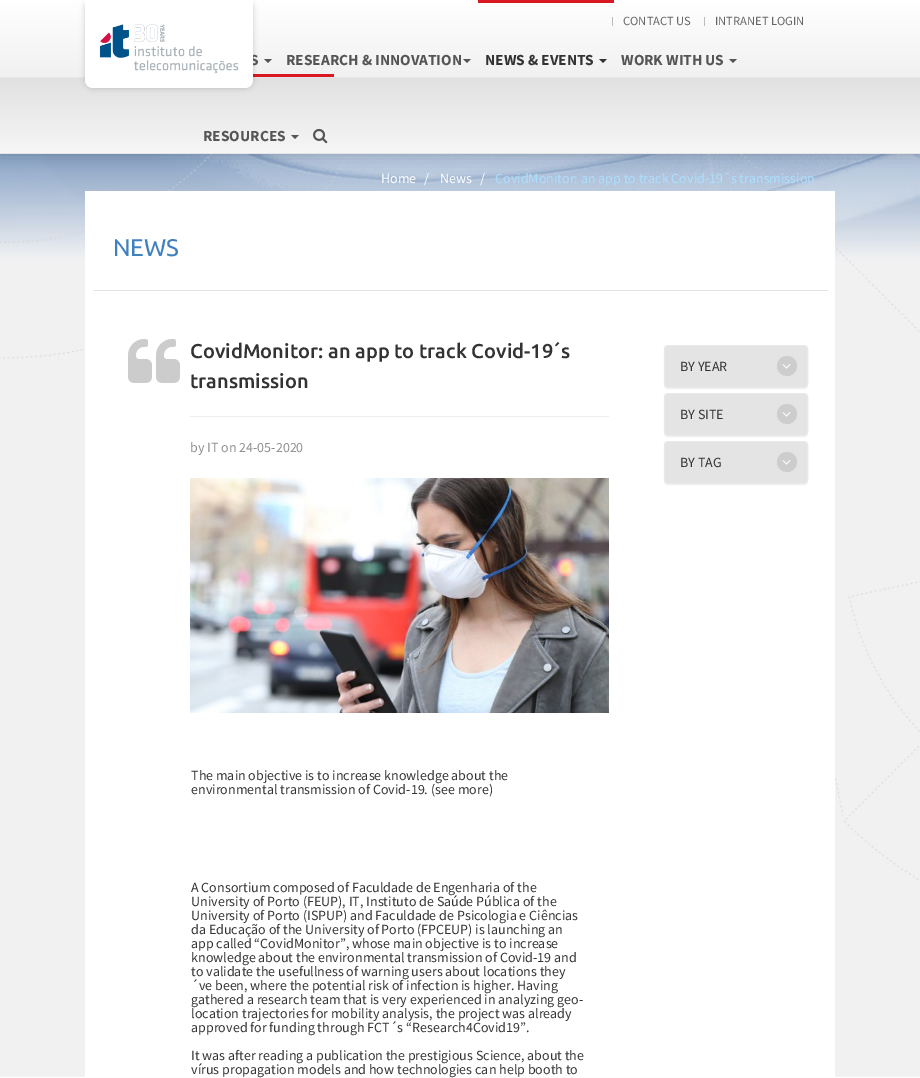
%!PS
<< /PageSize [920 1078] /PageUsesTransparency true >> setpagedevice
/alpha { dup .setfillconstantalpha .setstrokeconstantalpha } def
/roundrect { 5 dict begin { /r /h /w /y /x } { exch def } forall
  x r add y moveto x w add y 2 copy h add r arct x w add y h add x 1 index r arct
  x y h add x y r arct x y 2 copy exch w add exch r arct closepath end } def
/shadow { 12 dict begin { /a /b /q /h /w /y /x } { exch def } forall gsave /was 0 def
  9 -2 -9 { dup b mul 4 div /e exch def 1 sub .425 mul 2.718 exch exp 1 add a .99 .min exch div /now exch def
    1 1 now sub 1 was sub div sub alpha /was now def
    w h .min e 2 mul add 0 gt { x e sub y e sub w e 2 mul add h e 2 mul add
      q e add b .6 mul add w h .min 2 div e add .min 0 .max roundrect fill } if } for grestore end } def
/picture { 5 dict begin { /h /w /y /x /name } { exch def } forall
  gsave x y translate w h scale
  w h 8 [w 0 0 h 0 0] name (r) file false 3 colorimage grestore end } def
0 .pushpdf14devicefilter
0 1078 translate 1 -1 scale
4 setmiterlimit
1 setgray
0 0 920 1078 rectfill
(img1.rgb) 0 154 920 924 picture
0 setgray
0 0 920 154 0 8 0.18 shadow
gsave newpath 0 0 moveto 920 0 lineto 920 153 lineto 0 153 lineto closepath clip newpath
<< /ShadingType 2 /ColorSpace /DeviceRGB /Coords [460 0 460 153] /Extend [true true] /Function << /FunctionType 3 /Domain [0 1] /Functions [<< /FunctionType 2 /Domain [0 1] /C0 [1 1 1] /C1 [0.945 0.945 0.945] /N 1 >> << /FunctionType 2 /Domain [0 1] /C0 [0.945 0.945 0.945] /C1 [0.882 0.882 0.882] /N 1 >> << /FunctionType 2 /Domain [0 1] /C0 [0.882 0.882 0.882] /C1 [0.965 0.965 0.965] /N 1 >>] /Bounds [0.5 0.51] /Encode [0 1 0 1 0 1] >> >> shfill grestore
0.894 setgray
0 153 920 1 rectfill
0.851 0.094 0.133 setrgbcolor
253 74 81 3 rectfill
0 setgray
85 0 168 88 8 3 0.18 shadow
/SourceSansPro-Bold [15.4 0 0 -15.4 0 0] selectfont
0.333 setgray
250 65 moveto (S) show
1 setgray
newpath 85 0 moveto 253 0 lineto 253 80 lineto 253 84.5 249.5 88 245 88 curveto 93 88 lineto 88.5 88 85 84.5 85 80 curveto closepath fill
(img2.rgb) 99 24 140 50 picture
0.733 setgray
612 17 1 9 rectfill
/SourceSansPro-Regular [12.5 0 0 -12.5 0 0] selectfont
0.4 setgray
623 25 moveto (CONTACT US) show
0.733 setgray
704 17 1 9 rectfill
0.4 setgray
715 25 moveto (INTRANET LOGIN) show
0.333 setgray
newpath 264 59 moveto 272 59 lineto 268 63 lineto closepath fill
/SourceSansPro-Bold [15.4 0 0 -15.4 0 0] selectfont
286 65 moveto (RESEARCH & INNOVATION) show
newpath 463 59 moveto 471 59 lineto 467 63 lineto closepath fill
0.851 0.094 0.133 setrgbcolor
478 0 136 3 rectfill
0.2 setgray
485 65 moveto (NEWS & EVENTS) show
newpath 599 59 moveto 607 59 lineto 603 63 lineto closepath fill
0.333 setgray
621 65 moveto (WORK WITH US) show
newpath 729 59 moveto 737 59 lineto 733 63 lineto closepath fill
203 141 moveto (RESOURCES) show
newpath 291 135 moveto 299 135 lineto 295 139 lineto closepath fill
(img3.rgb) 313 128 15 16 picture
/SourceSansPro-Regular [14 0 0 -14 0 0] selectfont
1 setgray
381 183 moveto (Home) show
424 183 moveto (/) show
440 183 moveto (News) show
480 183 moveto (/) show
0.671 0.878 1 setrgbcolor
495 183 moveto (CovidMonitor: an app to track Covid-19´s transmission) show
1 setgray
85 191 750 886 rectfill
0.89 setgray
93 290 735 1 rectfill
/Ubuntu-Regular [24 0 0 -24 0 0] selectfont
0.255 0.502 0.749 setrgbcolor
113 256 moveto (NEWS) show
(img4.rgb) 128 339 52 44 picture
/Ubuntu-Medium [20 0 0 -20 0 0] selectfont
0.2 setgray
190 358 moveto (CovidMonitor: an app to track Covid-19´s) show
190 388 moveto (transmission) show
0.933 setgray
190 416 419 1 rectfill
/SourceSansPro-Regular [14 0 0 -14 0 0] selectfont
0.561 setgray
190 452 moveto (by IT on 24-05-2020) show
(img5.rgb) 190 478 419 235 picture
0.2 setgray
191 780 moveto (The main objective is to increase knowledge about the) show
191 794 moveto (environmental transmission of Covid-19. \(see more\)) show
191 892 moveto (A Consortium composed of Faculdade de Engenharia of the) show
191 906 moveto (University of Porto \(FEUP\), IT, Instituto de Saúde Pública of the) show
191 920 moveto (University of Porto \(ISPUP\) and Faculdade de Psicologia e Ciências) show
191 934 moveto (da Educação of the University of Porto \(FPCEUP\) is launching an) show
191 948 moveto (app called “CovidMonitor”, whose main objective is to increase) show
191 962 moveto (knowledge about the environmental transmission of Covid-19 and) show
191 976 moveto (to validate the usefullness of warning users about locations they) show
191 990 moveto (´ve been, where the potential risk of infection is higher. Having) show
191 1004 moveto (gathered a research team that is very experienced in analyzing geo-) show
191 1018 moveto (location trajectories for mobility analysis, the project was already) show
191 1032 moveto (approved for funding through FCT´s “Research4Covid19”.) show
191 1060 moveto (It was after reading a publication the prestigious Science, about the) show
191 1074 moveto (vírus propagation models and how technologies can help booth to) show
0 setgray
664 346 144 43 4 0.5 0.05 shadow
0.914 setgray
664.5 345.5 143 42 3.5 roundrect stroke
0.894 setgray
665 346 142 41 3 roundrect fill
0.2 setgray
680 371 moveto (BY YEAR) show
0.804 setgray
newpath 787 366 10 0 360 arc closepath fill
(img6.rgb) 782 364 9 5 picture
0 setgray
664 394 144 43 4 0.5 0.05 shadow
0.914 setgray
664.5 393.5 143 42 3.5 roundrect stroke
0.894 setgray
665 394 142 41 3 roundrect fill
0.2 setgray
680 419 moveto (BY SITE) show
0.804 setgray
newpath 787 414 10 0 360 arc closepath fill
(img6.rgb) 782 412 9 5 picture
0 setgray
664 442 144 43 4 0.5 0.05 shadow
0.914 setgray
664.5 441.5 143 42 3.5 roundrect stroke
0.894 setgray
665 442 142 41 3 roundrect fill
0.2 setgray
680 467 moveto (BY TAG) show
0.804 setgray
newpath 787 462 10 0 360 arc closepath fill
(img6.rgb) 782 460 9 5 picture
.poppdf14devicefilter showpage
